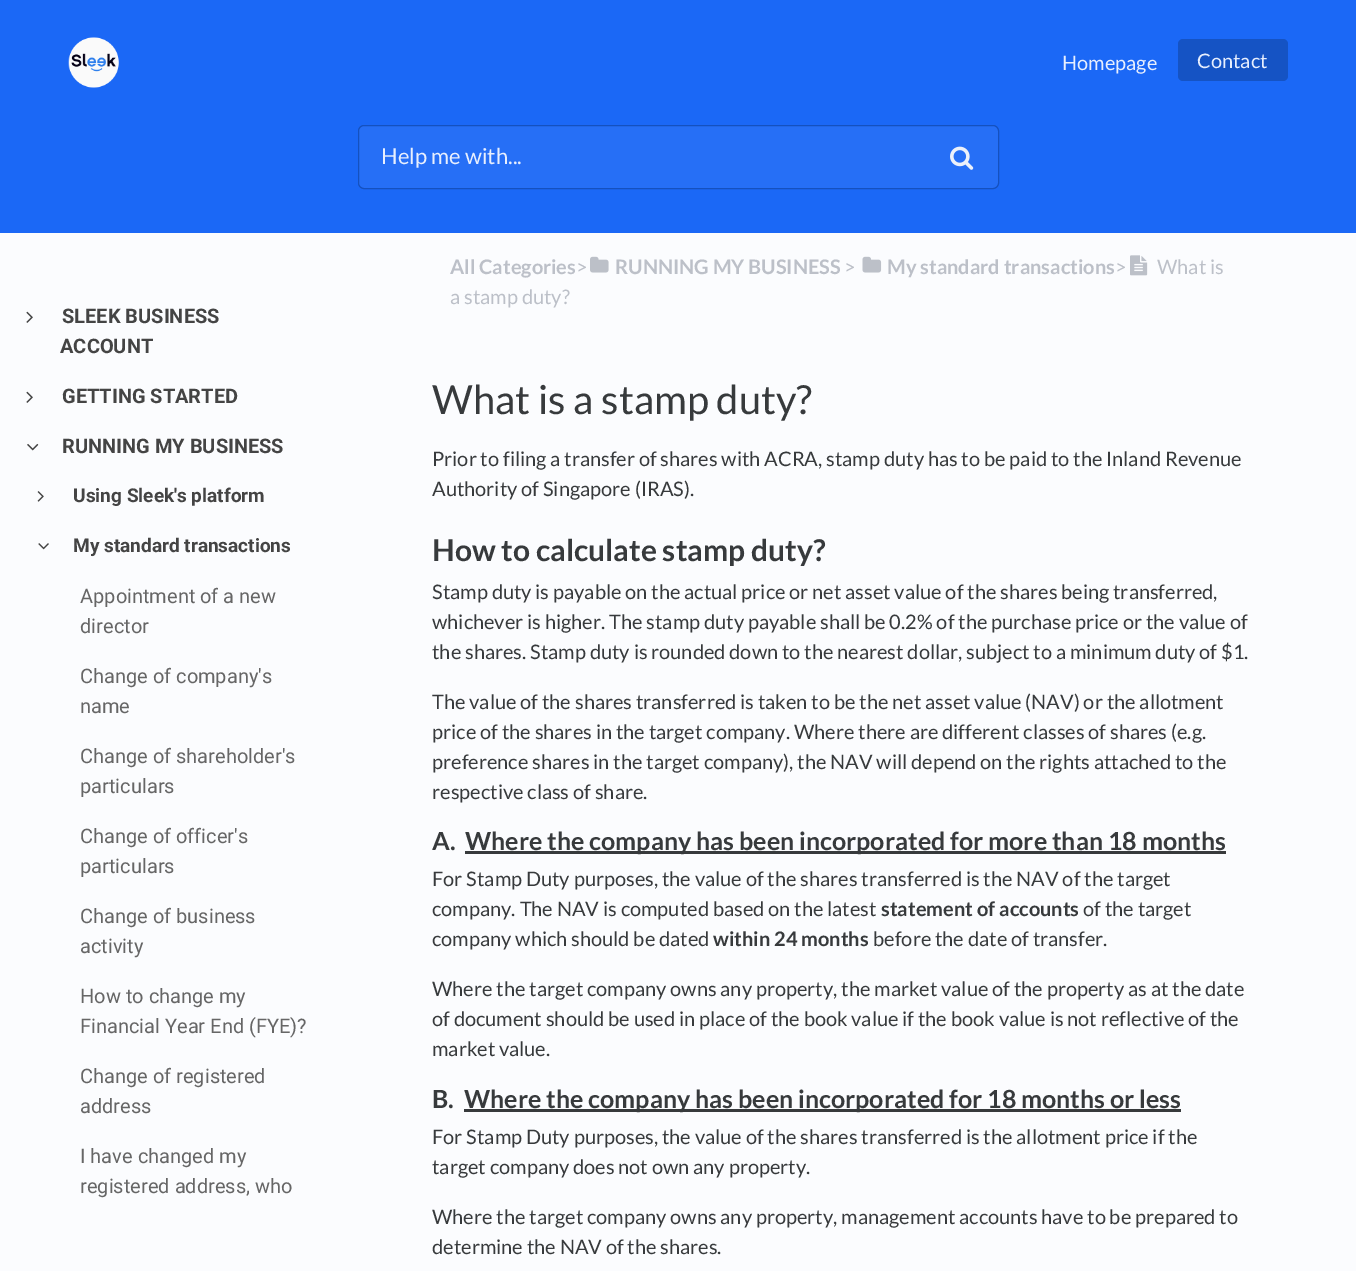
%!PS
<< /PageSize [1356 1271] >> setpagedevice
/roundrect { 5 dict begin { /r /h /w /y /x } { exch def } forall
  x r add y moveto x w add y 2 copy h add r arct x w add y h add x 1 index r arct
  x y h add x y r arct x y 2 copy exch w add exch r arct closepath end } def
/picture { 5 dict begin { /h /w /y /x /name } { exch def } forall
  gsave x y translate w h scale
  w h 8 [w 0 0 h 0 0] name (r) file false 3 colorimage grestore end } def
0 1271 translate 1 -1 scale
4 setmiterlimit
0.984 0.988 0.996 setrgbcolor
0 0 1356 1271 rectfill
0.106 0.408 0.965 setrgbcolor
0 0 1356 233 rectfill
(img1.rgb) 68 37 51 51 picture
/Lato-Regular [20 0 0 -20 0 0] selectfont
0.91 0.937 0.996 setrgbcolor
1062 70 moveto (Homepage) show
0.082 0.325 0.769 setrgbcolor
1178 39 110 42 5 roundrect fill
0.91 0.937 0.996 setrgbcolor
1197 68 moveto (Contact) show
0.149 0.435 0.965 setrgbcolor
358.5 125.5 640 63 5.5 roundrect gsave fill grestore
0.082 0.318 0.749 setrgbcolor
stroke
/Lato-Regular [22 0 0 -22 0 0] selectfont
0.91 0.937 0.996 setrgbcolor
381 164 moveto (Help me with...) show
(img2.rgb) 950 146 24 24 picture
(img3.rgb) 26 311 7 12 picture
/Roboto-Bold [20 0 0 -20 0 0] selectfont
0.267 setgray
62 323 moveto (SLEEK BUSINESS) show
60 353 moveto (ACCOUNT) show
(img3.rgb) 26 391 7 12 picture
62 403 moveto (GETTING STARTED) show
(img4.rgb) 27 443 12 8 picture
62 453 moveto (RUNNING MY BUSINESS) show
(img5.rgb) 37 491 7 11 picture
/Roboto-Bold [19 0 0 -19 0 0] selectfont
73 502 moveto (Using Sleek's platform) show
(img6.rgb) 38 543 11 7 picture
73 552 moveto (My standard transactions) show
/Roboto-Regular [20 0 0 -20 0 0] selectfont
0.4 setgray
80 603 moveto (Appointment of a new) show
80 633 moveto (director) show
80 683 moveto (Change of company's) show
80 713 moveto (name) show
80 763 moveto (Change of shareholder's) show
80 793 moveto (particulars) show
80 843 moveto (Change of officer's) show
80 873 moveto (particulars) show
80 923 moveto (Change of business) show
80 953 moveto (activity) show
80 1003 moveto (How to change my) show
80 1033 moveto (Financial Year End \(FYE\)?) show
80 1083 moveto (Change of registered) show
80 1113 moveto (address) show
80 1163 moveto (I have changed my) show
80 1193 moveto (registered address, who) show
/Lato-Bold [20 0 0 -20 0 0] selectfont
0.737 0.753 0.784 setrgbcolor
450 274 moveto (All Categories) show
/Lato-Regular [20 0 0 -20 0 0] selectfont
576 274 moveto (>) show
(img7.rgb) 590 256 19 17 picture
/Lato-Bold [20 0 0 -20 0 0] selectfont
615 274 moveto (RUNNING MY BUSINESS) show
/Lato-Regular [20 0 0 -20 0 0] selectfont
844 274 moveto (>) show
(img8.rgb) 862 256 20 17 picture
/Lato-Bold [20 0 0 -20 0 0] selectfont
887 274 moveto (My standard transactions) show
/Lato-Regular [20 0 0 -20 0 0] selectfont
1115 274 moveto (>) show
(img9.rgb) 1130 255 18 21 picture
1157 274 moveto (What is) show
450 304 moveto (a stamp duty?) show
/Lato-Regular [40 0 0 -40 0 0] selectfont
0.216 0.227 0.235 setrgbcolor
432 414 moveto (What is a stamp duty?) show
/Lato-Regular [20 0 0 -20 0 0] selectfont
432 466 moveto (Prior to filing a transfer of shares with ACRA, stamp duty has to be paid to the Inland Revenue) show
432 496 moveto (Authority of Singapore \(IRAS\).) show
/Lato-Bold [30 0 0 -30 0 0] selectfont
432 561 moveto (How to calculate stamp duty?) show
/Lato-Regular [20 0 0 -20 0 0] selectfont
432 599 moveto (Stamp duty is payable on the actual price or net asset value of the shares being transferred,) show
432 629 moveto (whichever is higher. The stamp duty payable shall be 0.2% of the purchase price or the value of) show
432 659 moveto (the shares. Stamp duty is rounded down to the nearest dollar, subject to a minimum duty of $1.) show
432 709 moveto (The value of the shares transferred is taken to be the net asset value \(NAV\) or the allotment) show
432 739 moveto (price of the shares in the target company. Where there are different classes of shares \(e.g.) show
432 769 moveto (preference shares in the target company\), the NAV will depend on the rights attached to the) show
432 799 moveto (respective class of share.) show
/Lato-Bold [25 0 0 -25 0 0] selectfont
432 850 moveto (A.) show
465 851 761 3 rectfill
465 850 moveto (Where the company has been incorporated for more than 18 months) show
/Lato-Regular [20 0 0 -20 0 0] selectfont
432 886 moveto (For Stamp Duty purposes, the value of the shares transferred is the NAV of the target) show
432 916 moveto (company. The NAV is computed based on the latest) show
/Lato-Bold [20 0 0 -20 0 0] selectfont
881 916 moveto (statement of accounts) show
/Lato-Regular [20 0 0 -20 0 0] selectfont
1083 916 moveto (of the target) show
432 946 moveto (company which should be dated) show
/Lato-Bold [20 0 0 -20 0 0] selectfont
713 946 moveto (within 24 months) show
/Lato-Regular [20 0 0 -20 0 0] selectfont
873 946 moveto (before the date of transfer.) show
432 996 moveto (Where the target company owns any property, the market value of the property as at the date) show
432 1026 moveto (of document should be used in place of the book value if the book value is not reflective of the) show
432 1056 moveto (market value.) show
/Lato-Bold [25 0 0 -25 0 0] selectfont
432 1108 moveto (B.) show
464 1109 717 3 rectfill
464 1108 moveto (Where the company has been incorporated for 18 months or less) show
/Lato-Regular [20 0 0 -20 0 0] selectfont
432 1144 moveto (For Stamp Duty purposes, the value of the shares transferred is the allotment price if the) show
432 1174 moveto (target company does not own any property.) show
432 1224 moveto (Where the target company owns any property, management accounts have to be prepared to) show
432 1254 moveto (determine the NAV of the shares.) show
showpage
